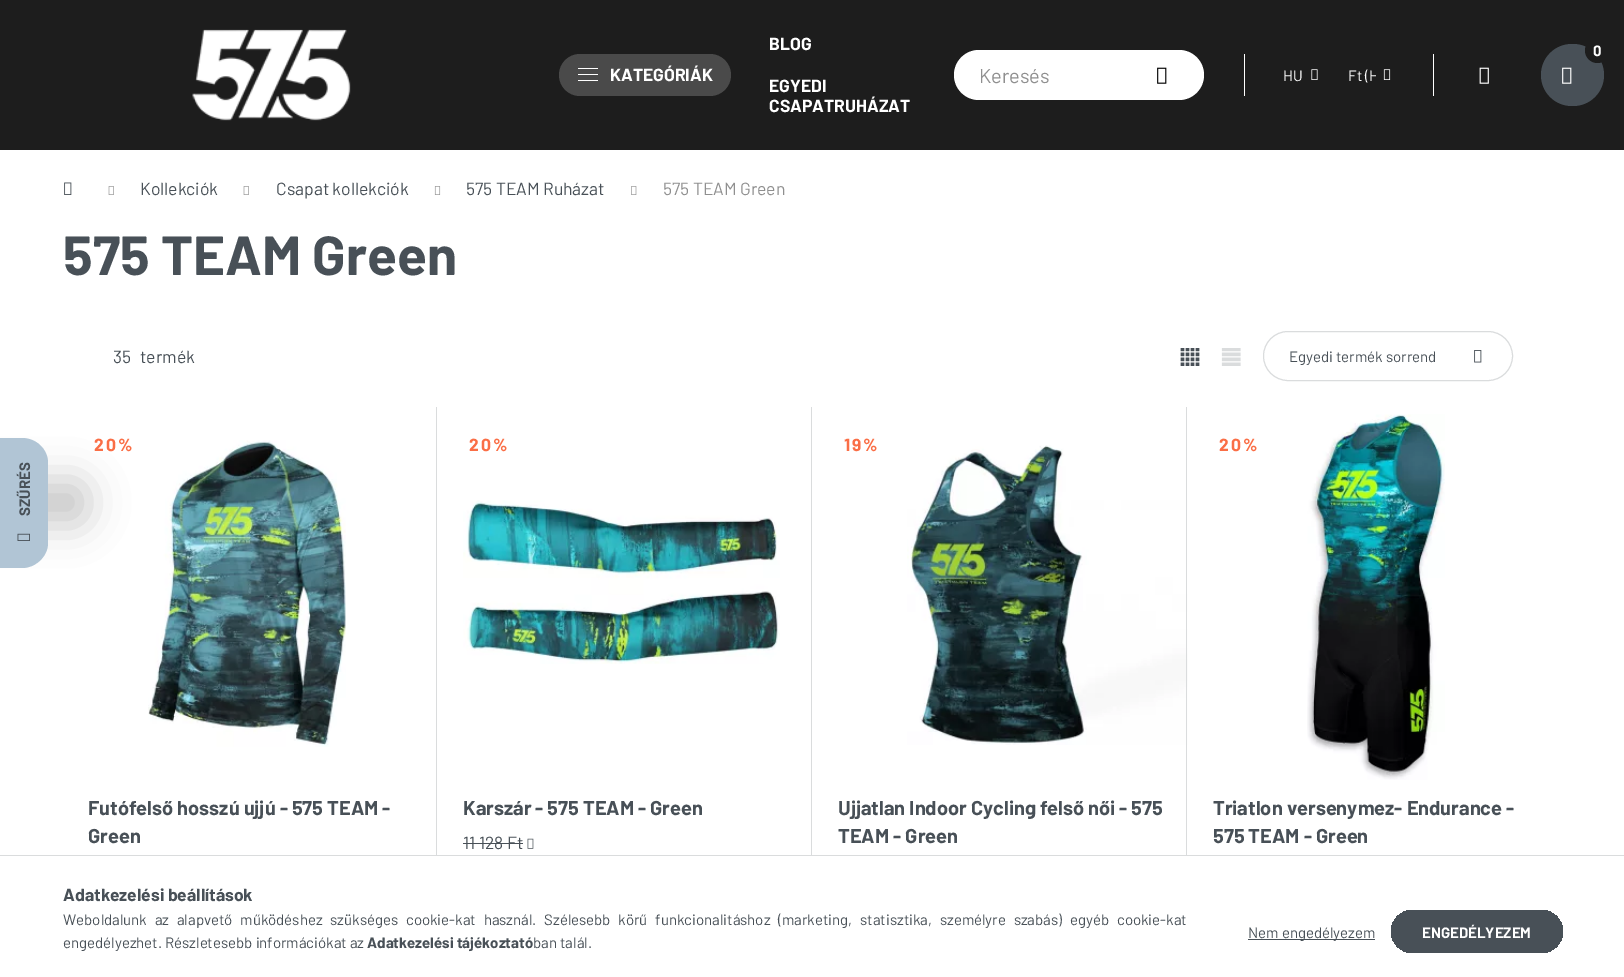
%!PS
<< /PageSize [1624 977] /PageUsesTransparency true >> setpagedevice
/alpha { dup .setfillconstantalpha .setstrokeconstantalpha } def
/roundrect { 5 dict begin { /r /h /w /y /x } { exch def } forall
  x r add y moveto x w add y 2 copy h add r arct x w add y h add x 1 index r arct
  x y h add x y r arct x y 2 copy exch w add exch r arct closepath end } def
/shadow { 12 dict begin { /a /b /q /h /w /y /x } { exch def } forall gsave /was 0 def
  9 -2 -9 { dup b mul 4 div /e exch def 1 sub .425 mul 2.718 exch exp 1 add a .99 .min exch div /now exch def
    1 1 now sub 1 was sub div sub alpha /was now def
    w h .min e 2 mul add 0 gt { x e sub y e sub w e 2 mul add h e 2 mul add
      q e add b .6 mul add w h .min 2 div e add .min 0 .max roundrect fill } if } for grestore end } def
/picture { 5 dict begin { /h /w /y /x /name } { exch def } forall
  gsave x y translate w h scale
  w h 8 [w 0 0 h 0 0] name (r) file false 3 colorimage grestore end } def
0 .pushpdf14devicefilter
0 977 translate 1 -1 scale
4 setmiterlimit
1 setgray
0 0 1624 977 rectfill
0.114 setgray
0 0 1624 150 rectfill
(img1.rgb) 192 29 159 92 picture
0.29 setgray
559 54 172 42 21 roundrect fill
1 setgray
578 68 20 1 rectfill
578 74 20 1 rectfill
578 80 20 1 rectfill
/Barlow-Bold [17.5 0 0 -17.5 0 0] selectfont
610 81 moveto (KATEGÓRIÁK) show
769 50 moveto (BLOG) show
769 92 moveto (EGYEDI) show
769 112 moveto (CSAPATRUHÁZAT) show
0.282 0.314 0.341 setrgbcolor
1541 44 63 62 31 roundrect fill
0.114 setgray
newpath 1597.5 50.5 12.5 0 360 arc closepath fill
/Barlow-Bold [15 0 0 -15 0 0] selectfont
1 setgray
1593 56 moveto (0) show
(img2.rgb) 1562 67 10 17 picture
954 50 250 50 25 roundrect fill
/Barlow-Regular [20 0 0 -20 0 0] selectfont
0.561 setgray
979 83 moveto (Keresés) show
(img3.rgb) 1157 67 10 17 picture
1 setgray
1433 54 1 42 rectfill
1244 54 1 42 rectfill
/Barlow-Regular [15 0 0 -15 0 0] selectfont
1283 81 moveto (HU) show
(img4.rgb) 1311 69 7 11 picture
gsave
1348 64 28 22 rectclip
1348 81 moveto (Ft \(H) show
grestore
(img5.rgb) 1383 69 8 11 picture
(img6.rgb) 1479 67 10 17 picture
0 setgray
-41 479 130 47 25 19 0.2 shadow
0.694 0.773 0.835 setrgbcolor
newpath 0 568 moveto 0 438 lineto 22 438 lineto 36 438 48 449 48 463 curveto 48 543 lineto 48 556 36 568 22 568 curveto closepath fill
/Barlow-Bold [15 0 0 -15 0 0] selectfont
0.282 0.314 0.341 setrgbcolor
gsave 30 516 translate -90 rotate 0 0 moveto (SZŰRÉS) show grestore
(img7.rgb) 17 533 13 8 picture
(img8.rgb) 64 182 8 13 picture
(img9.rgb) 108 186 6 9 picture
/Barlow-Regular [17.5 0 0 -17.5 0 0] selectfont
140 195 moveto (Kollekciók) show
(img9.rgb) 243 186 6 9 picture
276 195 moveto (Csapat kollekciók) show
(img10.rgb) 434 186 7 9 picture
466 195 moveto (575 TEAM Ruházat) show
(img11.rgb) 631 186 6 9 picture
0.561 setgray
663 195 moveto (575 TEAM Green) show
/Barlow-Bold [55 0 0 -55 0 0] selectfont
0.282 0.314 0.341 setrgbcolor
63 275 moveto (575 TEAM Green) show
/Barlow-Regular [17.5 0 0 -17.5 0 0] selectfont
113 363 moveto (35) show
140 363 moveto (termék) show
(img12.rgb) 1180 348 20 18 picture
(img13.rgb) 1221 348 20 18 picture
0.855 0.863 0.867 setrgbcolor
1263.5 331.5 249 49 24.5 roundrect stroke
/Barlow-Regular [15 0 0 -15 0 0] selectfont
0.282 0.314 0.341 setrgbcolor
1289 362 moveto (Egyedi termék sorrend) show
(img14.rgb) 1474 350 8 13 picture
0.855 0.863 0.867 setrgbcolor
436 406 1 449 rectfill
811 406 1 449 rectfill
(img18.rgb) 907 445 281 300 picture
1186 406 1 449 rectfill
1 setgray
436 406 751 1 rectfill
/Barlow-Bold [17.5 0 0 -17.5 0 0] selectfont
0.98 0.431 0.275 setrgbcolor
94 451 moveto 2 0 (20%) ashow
(img15.rgb) 148 440 198 307 picture
/Barlow-Bold [20 0 0 -20 0 0] selectfont
0.282 0.314 0.341 setrgbcolor
88 815 moveto (Futófelső hosszú ujjú - 575 TEAM -) show
88 843 moveto (Green) show
/Barlow-Bold [17.5 0 0 -17.5 0 0] selectfont
0.98 0.431 0.275 setrgbcolor
469 451 moveto 2 0 (20%) ashow
(img16.rgb) 463 500 317 164 picture
/Barlow-Bold [20 0 0 -20 0 0] selectfont
0.282 0.314 0.341 setrgbcolor
463 815 moveto (Karszár - 575 TEAM - Green) show
/Barlow-Regular [17.5 0 0 -17.5 0 0] selectfont
463 849 moveto (11 128 Ft) show
463 843 60 1 rectfill
(img17.rgb) 527 838 7 11 picture
/Barlow-Bold [17.5 0 0 -17.5 0 0] selectfont
0.98 0.431 0.275 setrgbcolor
844 451 moveto 2 0 (19%) ashow
/Barlow-Bold [20 0 0 -20 0 0] selectfont
0.282 0.314 0.341 setrgbcolor
838 815 moveto (Ujjatlan Indoor Cycling felső női - 575) show
838 843 moveto (TEAM - Green) show
/Barlow-Bold [17.5 0 0 -17.5 0 0] selectfont
0.98 0.431 0.275 setrgbcolor
1219 451 moveto 2 0 (20%) ashow
(img19.rgb) 1307 414 138 366 picture
/Barlow-Bold [20 0 0 -20 0 0] selectfont
0.282 0.314 0.341 setrgbcolor
1213 815 moveto (Triatlon versenymez- Endurance -) show
1213 843 moveto (575 TEAM - Green) show
0.855 0.863 0.867 setrgbcolor
0 855 1624 1 rectfill
/Barlow-Bold [17.5 0 0 -17.5 0 0] selectfont
0.282 0.314 0.341 setrgbcolor
63 901 moveto (Adatkezelési beállítások) show
/Barlow-Regular [15 0 0 -15 0 0] selectfont
63 925 moveto 4.75 0 32 (Weboldalunk az alapvető működéshez szükséges cookie-kat használ. Szélesebb körű funkcionalitáshoz \(marketing, statisztika, személyre szabás\) egyéb cookie-kat) widthshow
63 948 moveto (engedélyezhet. Részletesebb információkat az) show
/Barlow-Bold [15 0 0 -15 0 0] selectfont
367 948 moveto (Adatkezelési tájékoztató) show
/Barlow-Regular [15 0 0 -15 0 0] selectfont
533 948 moveto (ban talál.) show
1248 939 127 1 rectfill
1248 938 moveto (Nem engedélyezem) show
gsave 1391 910 172 43 21.5 roundrect clip newpath
<< /ShadingType 2 /ColorSpace /DeviceRGB /Coords [1391 931 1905 931] /Extend [true true] /Function << /FunctionType 3 /Domain [0 1] /Functions [<< /FunctionType 2 /Domain [0 1] /C0 [0.282 0.314 0.341] /C1 [0.282 0.314 0.341] /N 1 >> << /FunctionType 2 /Domain [0 1] /C0 [0.282 0.314 0.341] /C1 [0.694 0.773 0.835] /N 1 >> << /FunctionType 2 /Domain [0 1] /C0 [0.694 0.773 0.835] /C1 [0.694 0.773 0.835] /N 1 >>] /Bounds [0.33 0.67] /Encode [0 1 0 1 0 1] >> >> shfill grestore
/Barlow-Bold [15 0 0 -15 0 0] selectfont
1 setgray
1422 938 moveto (ENGEDÉLYEZEM) show
.poppdf14devicefilter showpage
